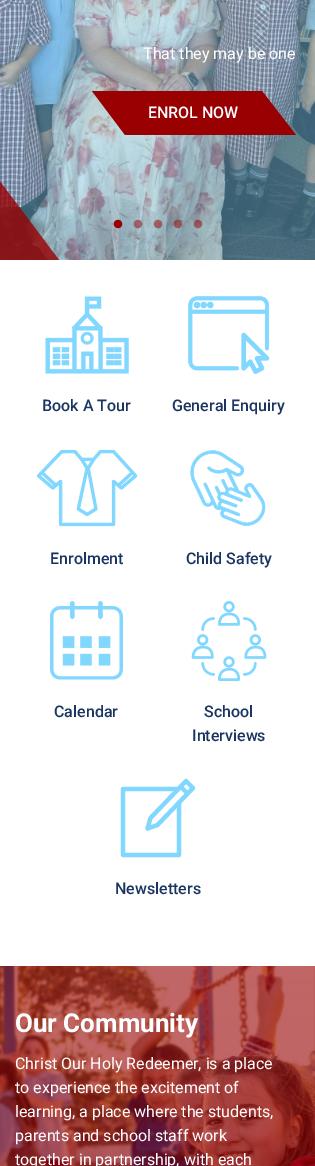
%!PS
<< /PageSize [315 1166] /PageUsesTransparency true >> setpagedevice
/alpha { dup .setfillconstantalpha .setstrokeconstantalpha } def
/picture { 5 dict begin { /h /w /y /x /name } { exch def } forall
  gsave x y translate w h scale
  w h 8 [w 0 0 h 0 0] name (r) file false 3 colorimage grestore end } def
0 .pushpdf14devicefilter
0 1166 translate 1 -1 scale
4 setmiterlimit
1 setgray
0 0 315 1166 rectfill
(img1.rgb) 0 0 315 260 picture
(img2.rgb) 113 219 10 10 picture
(img3.rgb) 133 219 10 10 picture
(img4.rgb) 153 219 10 10 picture
(img5.rgb) 173 219 10 10 picture
(img6.rgb) 193 219 10 10 picture
/Roboto-Regular [16 0 0 -16 0 0] selectfont
143 59 moveto (That they may be one) show
0.596 0 0.004 setrgbcolor
newpath 92 91 moveto 262 91 lineto 296 135 lineto 125 135 lineto closepath fill
/Roboto-Medium [16 0 0 -16 0 0] selectfont
1 setgray
148 118 moveto (ENROL NOW) show
0.8 alpha
0.596 0 0.004 setrgbcolor
newpath -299 50 moveto -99 50 lineto 59 260 lineto -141 260 lineto closepath fill
1 alpha
(img7.rgb) 45 296 84 78 picture
0.102 0.208 0.384 setrgbcolor
42 411 moveto (Book A Tour) show
(img8.rgb) 188 296 82 78 picture
172 411 moveto (General Enquiry) show
(img9.rgb) 36 449 102 78 picture
50 564 moveto (Enrolment) show
(img10.rgb) 190 450 76 76 picture
186 564 moveto (Child Safety) show
(img11.rgb) 50 601 73 79 picture
54 717 moveto (Calendar) show
(img12.rgb) 191 601 76 80 picture
204 717 moveto (School) show
192 741 moveto (Interviews) show
0.51 0.843 1 setrgbcolor
4.2 setlinewidth
1 setlinecap
1 setlinejoin
newpath 193 788 moveto 186 781 lineto 150.5 818 lineto 147.5 828.5 lineto 157.5 825 lineto closepath 180.5 786.5 moveto 187.5 793.5 lineto stroke
newpath 179 803.5 moveto 179 855 lineto 123 855 lineto 123 789 lineto 177.5 789 lineto stroke
0.102 0.208 0.384 setrgbcolor
115 894 moveto (Newsletters) show
(img13.rgb) 0 966 315 200 picture
/Roboto-Bold [26 0 0 -26 0 0] selectfont
1 setgray
15 1032 moveto (Our Community) show
/Roboto-Regular [16 0 0 -16 0 0] selectfont
15 1069 moveto (Christ Our Holy Redeemer, is a place) show
15 1093 moveto (to experience the excitement of) show
15 1117 moveto (learning, a place where the students,) show
15 1141 moveto (parents and school staff work) show
15 1165 moveto (together in partnership, with each) show
.poppdf14devicefilter showpage
